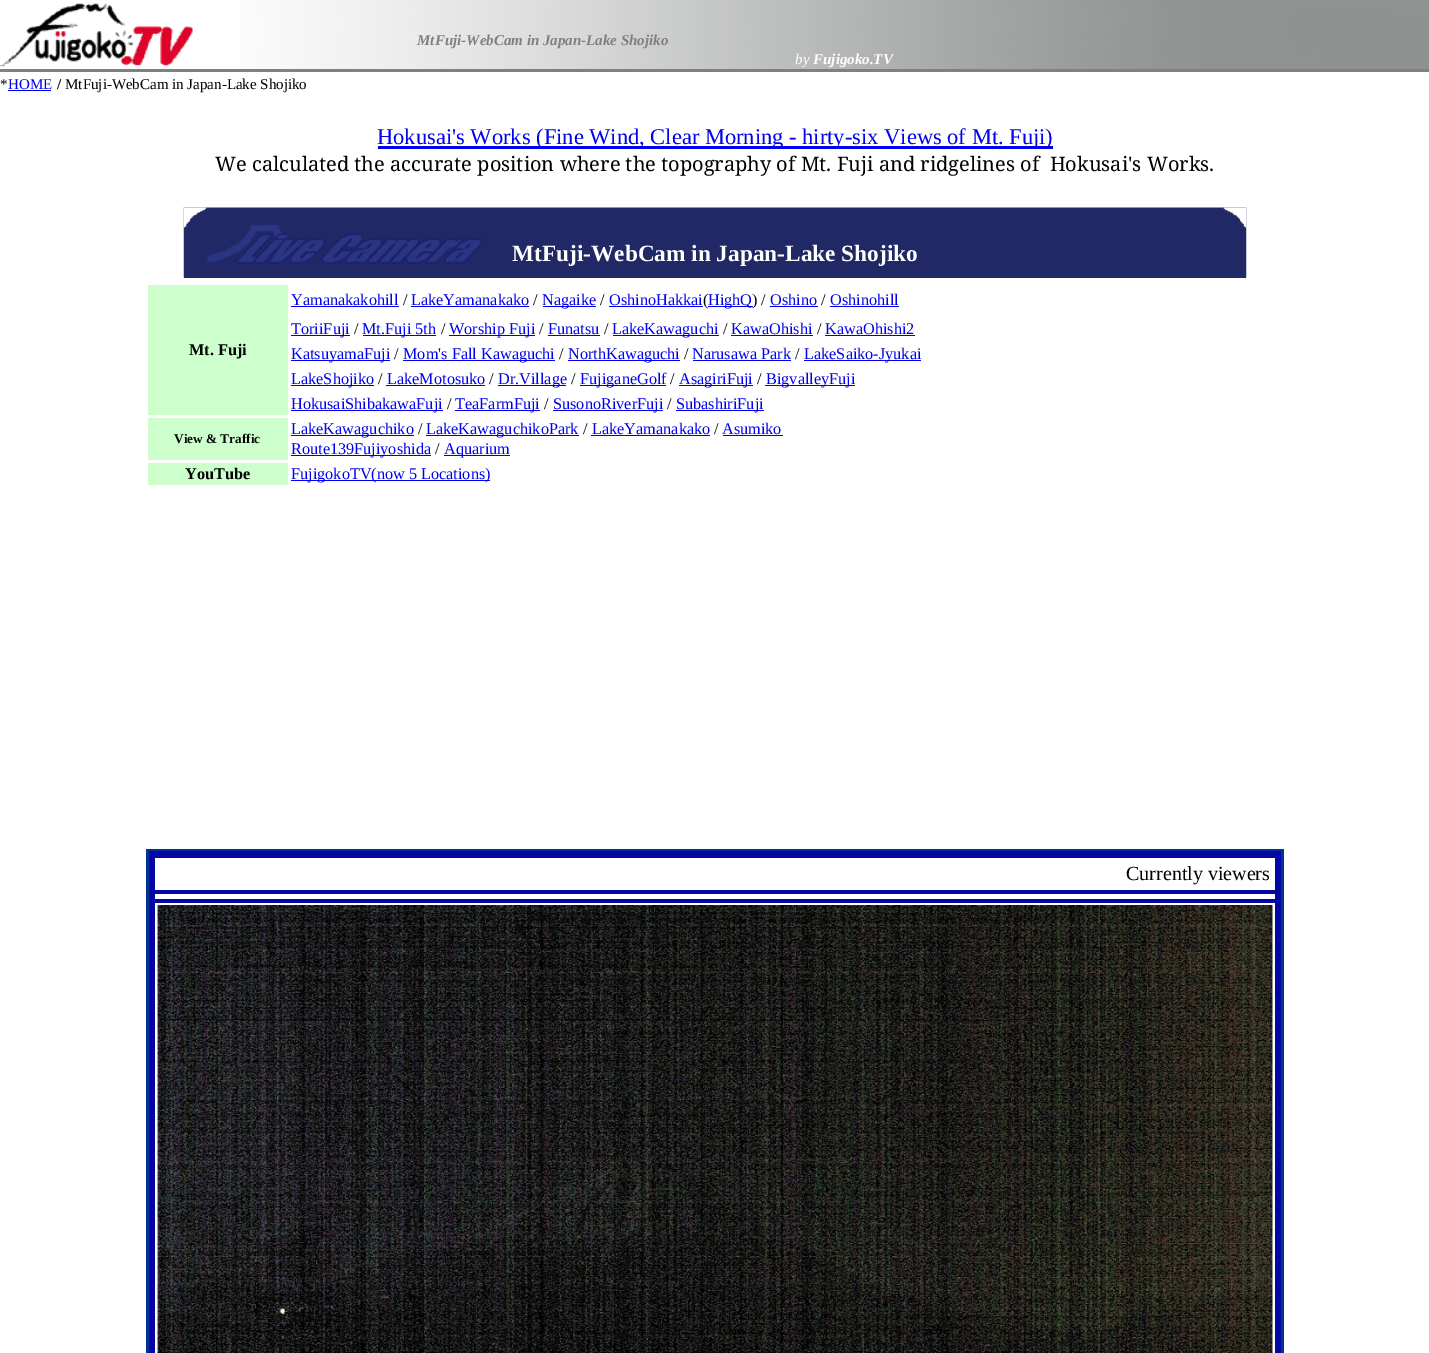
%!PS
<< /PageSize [1429 1353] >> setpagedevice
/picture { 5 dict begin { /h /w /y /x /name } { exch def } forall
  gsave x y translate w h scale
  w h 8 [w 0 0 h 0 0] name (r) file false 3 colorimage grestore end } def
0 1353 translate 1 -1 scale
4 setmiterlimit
1 setgray
0 0 1429 1353 rectfill
(img1.rgb) 240 0 1189 69 picture
(img2.rgb) 0 3 193 64 picture
/LiberationSerif-BoldItalic [15 0 0 -15 0 0] selectfont
0.502 setgray
417 45 moveto (MtFuji-WebCam in Japan-Lake Shojiko) show
/LiberationSerif-Italic [15 0 0 -15 0 0] selectfont
1 setgray
795 64 moveto (by) show
/LiberationSerif-BoldItalic [15 0 0 -15 0 0] selectfont
813 64 moveto (Fujigoko.TV) show
0.502 setgray
0 69 1429 3 rectfill
/LiberationSerif-Regular [15 0 0 -15 0 0] selectfont
0 setgray
0 89 moveto (*) show
0 0 0.933 setrgbcolor
8 89 moveto (HOME) show
8 90 43 1 rectfill
/LiberationSerif-Bold [15 0 0 -15 0 0] selectfont
0 setgray
57 89 moveto (/) show
/LiberationSerif-Regular [15 0 0 -15 0 0] selectfont
65 89 moveto (MtFuji-WebCam in Japan-Lake Shojiko) show
0 0 0.933 setrgbcolor
378 146 675 3 rectfill
/LiberationSerif-Regular [22.5 0 0 -22.5 0 0] selectfont
377 144 moveto (Hokusai's Works \(Fine Wind, Clear Morning - hirty-six Views of Mt. Fuji\)) show
/NotoSerif-Regular [20 0 0 -20 0 0] selectfont
0 setgray
215 171 moveto (We calculated the accurate position where the topography of Mt. Fuji and ridgelines of  Hokusai's Works.) show
0 0.2 0.6 setrgbcolor
184 277 1062 1 rectfill
(img3.rgb) 183 207 1064 71 picture
(img4.rgb) 183 207 24 21 picture
(img5.rgb) 1223 207 24 21 picture
/LiberationSerif-Bold [23.3 0 0 -23.3 0 0] selectfont
1 setgray
512 261 moveto (MtFuji-WebCam in Japan-Lake Shojiko) show
/LiberationSerif-Regular [16.25 0 0 -16.25 0 0] selectfont
0 0 0.933 setrgbcolor
291 305 moveto (Yamanakakohill) show
291 306 108 1 rectfill
0 setgray
403 305 moveto (/) show
0 0 0.933 setrgbcolor
411 305 moveto (LakeYamanakako) show
411 306 118 1 rectfill
0 setgray
533 305 moveto (/) show
0 0 0.933 setrgbcolor
543 306 53 1 rectfill
542 305 moveto (Nagaike) show
0 setgray
600 305 moveto (/) show
0 0 0.933 setrgbcolor
609 305 moveto (OshinoHakkai) show
609 306 94 1 rectfill
0 setgray
703 305 moveto (\() show
0 0 0.933 setrgbcolor
708 306 45 1 rectfill
708 305 moveto (HighQ) show
0 setgray
752 305 moveto (\) /) show
0 0 0.933 setrgbcolor
770 305 moveto (Oshino) show
770 306 48 1 rectfill
0 setgray
821 305 moveto (/) show
0 0 0.933 setrgbcolor
830 305 moveto (Oshinohill) show
830 306 69 1 rectfill
0.8 1 0.8 setrgbcolor
148 285 140 130 rectfill
/LiberationSerif-Bold [16.25 0 0 -16.25 0 0] selectfont
0 setgray
189 355 moveto (Mt. Fuji) show
0 0 0.933 setrgbcolor
291 335 59 1 rectfill
/LiberationSerif-Regular [16.25 0 0 -16.25 0 0] selectfont
291 334 moveto (ToriiFuji) show
0 setgray
354 334 moveto (/) show
0 0 0.933 setrgbcolor
363 335 73 1 rectfill
362 334 moveto (Mt.Fuji 5th) show
0 setgray
441 334 moveto (/) show
0 0 0.933 setrgbcolor
449 335 86 1 rectfill
449 334 moveto (Worship Fuji) show
0 setgray
539 334 moveto (/) show
0 0 0.933 setrgbcolor
548 334 moveto (Funatsu) show
548 335 52 1 rectfill
0 setgray
604 334 moveto (/) show
0 0 0.933 setrgbcolor
613 335 106 1 rectfill
612 334 moveto (LakeKawaguchi) show
0 setgray
723 334 moveto (/) show
0 0 0.933 setrgbcolor
731 334 moveto (KawaOhishi) show
731 335 82 1 rectfill
0 setgray
817 334 moveto (/) show
0 0 0.933 setrgbcolor
825 334 moveto (KawaOhishi2) show
825 335 90 1 rectfill
291 360 99 1 rectfill
291 359 moveto (KatsuyamaFuji) show
0 setgray
394 359 moveto (/) show
0 0 0.933 setrgbcolor
403 360 152 1 rectfill
403 359 moveto (Mom's Fall Kawaguchi) show
0 setgray
559 359 moveto (/) show
0 0 0.933 setrgbcolor
568 360 112 1 rectfill
568 359 moveto (NorthKawaguchi) show
0 setgray
684 359 moveto (/) show
0 0 0.933 setrgbcolor
692 359 moveto (Narusawa Park) show
693 360 98 1 rectfill
0 setgray
795 359 moveto (/) show
0 0 0.933 setrgbcolor
804 360 117 1 rectfill
804 359 moveto (LakeSaiko-Jyukai) show
291 385 83 1 rectfill
291 384 moveto (LakeShojiko) show
0 setgray
378 384 moveto (/) show
0 0 0.933 setrgbcolor
387 384 moveto (LakeMotosuko) show
386 385 99 1 rectfill
0 setgray
489 384 moveto (/) show
0 0 0.933 setrgbcolor
498 385 68 1 rectfill
498 384 moveto (Dr.Village) show
0 setgray
571 384 moveto (/) show
0 0 0.933 setrgbcolor
580 385 86 1 rectfill
580 384 moveto (FujiganeGolf) show
0 setgray
670 384 moveto (/) show
0 0 0.933 setrgbcolor
679 385 74 1 rectfill
679 384 moveto (AsagiriFuji) show
0 setgray
757 384 moveto (/) show
0 0 0.933 setrgbcolor
765 385 90 1 rectfill
766 384 moveto (BigvalleyFuji) show
291 410 152 1 rectfill
291 409 moveto (HokusaiShibakawaFuji) show
0 setgray
447 409 moveto (/) show
0 0 0.933 setrgbcolor
455 410 85 1 rectfill
455 409 moveto (TeaFarmFuji) show
0 setgray
544 409 moveto (/) show
0 0 0.933 setrgbcolor
553 410 110 1 rectfill
553 409 moveto (SusonoRiverFuji) show
0 setgray
667 409 moveto (/) show
0 0 0.933 setrgbcolor
676 410 88 1 rectfill
676 409 moveto (SubashiriFuji) show
0.8 1 0.8 setrgbcolor
148 418 140 42 rectfill
/LiberationSerif-Bold [13.25 0 0 -13.25 0 0] selectfont
0 setgray
174 443 moveto (View & Traffic) show
0 0 0.933 setrgbcolor
291 435 123 1 rectfill
/LiberationSerif-Regular [16.25 0 0 -16.25 0 0] selectfont
291 434 moveto (LakeKawaguchiko) show
0 setgray
418 434 moveto (/) show
0 0 0.933 setrgbcolor
426 435 153 1 rectfill
426 434 moveto (LakeKawaguchikoPark) show
0 setgray
583 434 moveto (/) show
0 0 0.933 setrgbcolor
592 434 moveto (LakeYamanakako) show
591 435 119 1 rectfill
0 setgray
714 434 moveto (/) show
0 0 0.933 setrgbcolor
722 434 moveto (Asumiko) show
723 435 60 1 rectfill
291 455 140 1 rectfill
291 454 moveto (Route139Fujiyoshida) show
0 setgray
435 454 moveto (/) show
0 0 0.933 setrgbcolor
444 455 66 1 rectfill
444 454 moveto (Aquarium) show
0.8 1 0.8 setrgbcolor
148 463 140 22 rectfill
/LiberationSerif-Bold [16.25 0 0 -16.25 0 0] selectfont
0 setgray
185 479 moveto (YouTube) show
0 0 0.933 setrgbcolor
291 480 199 1 rectfill
/LiberationSerif-Regular [16.25 0 0 -16.25 0 0] selectfont
291 479 moveto (FujigokoTV\(now 5 Locations\)) show
0 0.2 0.6 setrgbcolor
146 849 1138 504 rectfill
0.012 0.027 0.639 setrgbcolor
149 851 1132 502 rectfill
1 setgray
155 858 1120 32 rectfill
/LiberationSerif-Regular [20 0 0 -20 0 0] selectfont
0 setgray
1126 880 moveto (Currently viewers) show
1 setgray
155 894 1120 5 rectfill
155 903 1120 450 rectfill
(img6.rgb) 157 905 1116 448 picture
showpage
